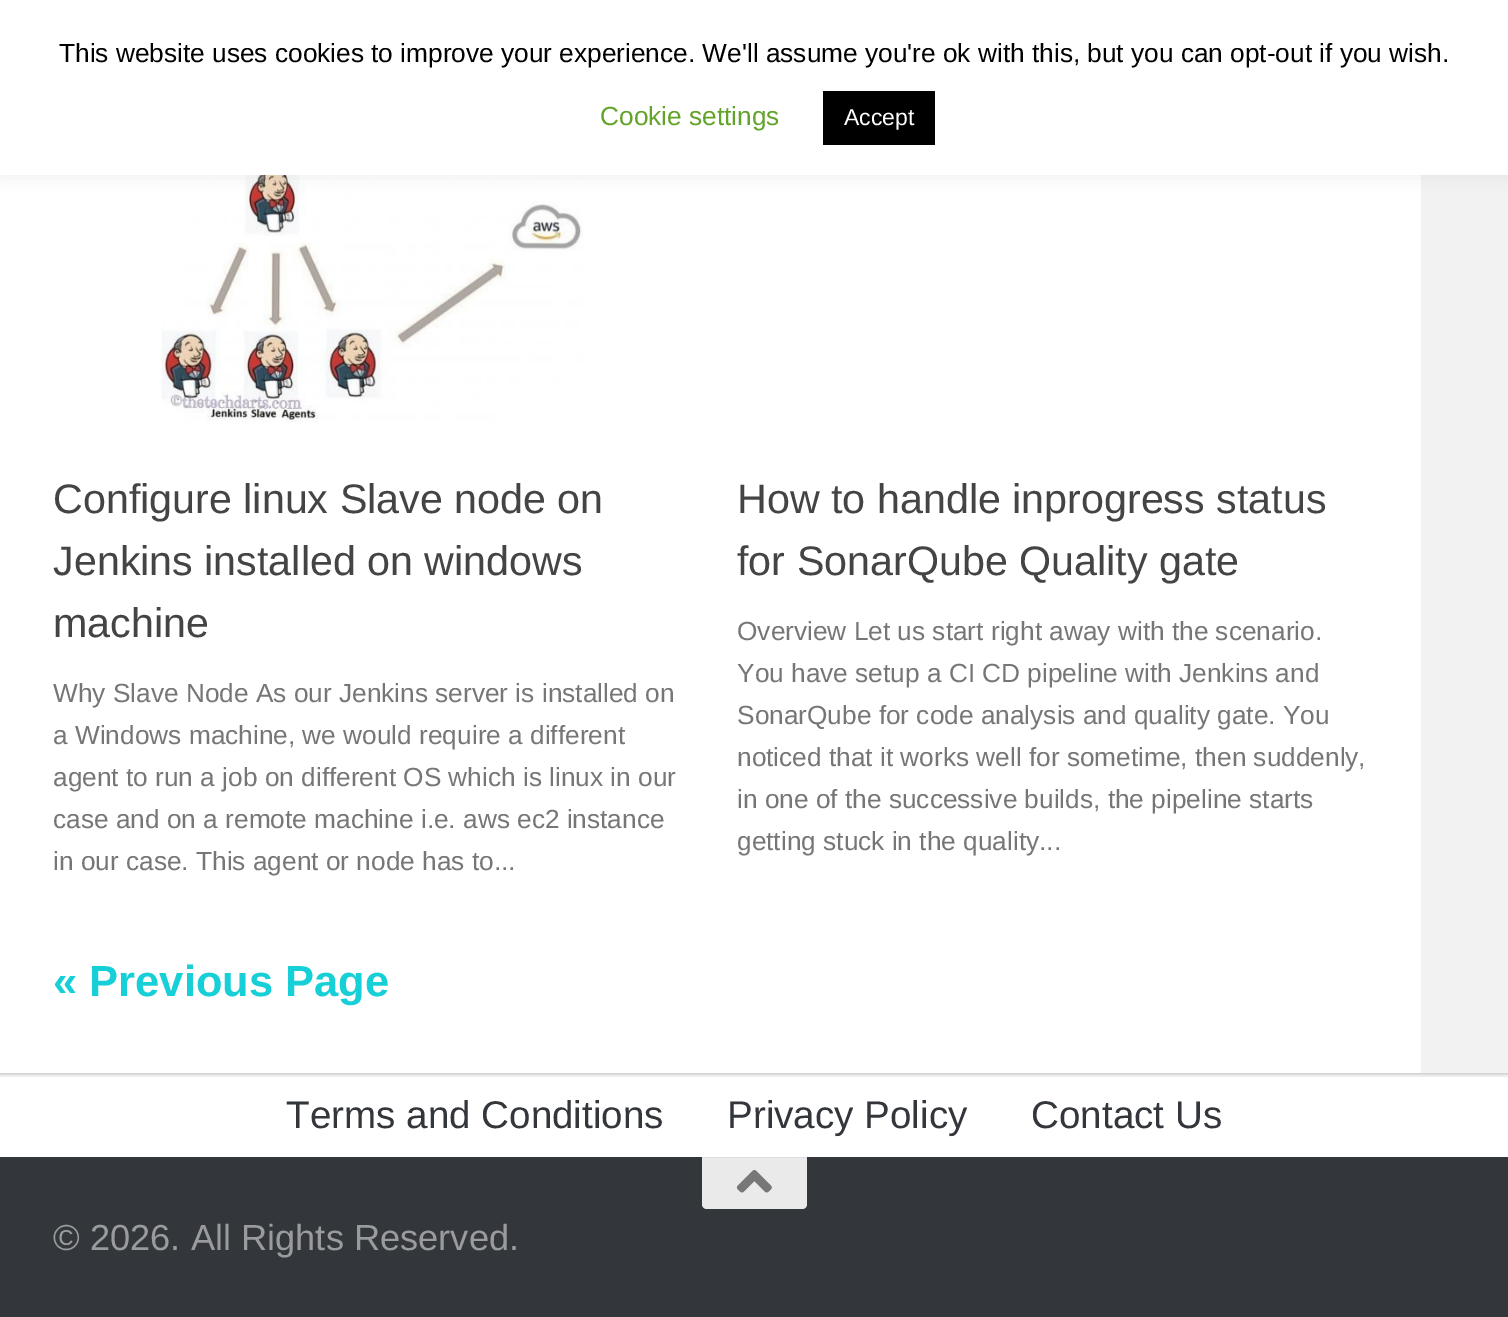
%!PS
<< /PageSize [1508 1317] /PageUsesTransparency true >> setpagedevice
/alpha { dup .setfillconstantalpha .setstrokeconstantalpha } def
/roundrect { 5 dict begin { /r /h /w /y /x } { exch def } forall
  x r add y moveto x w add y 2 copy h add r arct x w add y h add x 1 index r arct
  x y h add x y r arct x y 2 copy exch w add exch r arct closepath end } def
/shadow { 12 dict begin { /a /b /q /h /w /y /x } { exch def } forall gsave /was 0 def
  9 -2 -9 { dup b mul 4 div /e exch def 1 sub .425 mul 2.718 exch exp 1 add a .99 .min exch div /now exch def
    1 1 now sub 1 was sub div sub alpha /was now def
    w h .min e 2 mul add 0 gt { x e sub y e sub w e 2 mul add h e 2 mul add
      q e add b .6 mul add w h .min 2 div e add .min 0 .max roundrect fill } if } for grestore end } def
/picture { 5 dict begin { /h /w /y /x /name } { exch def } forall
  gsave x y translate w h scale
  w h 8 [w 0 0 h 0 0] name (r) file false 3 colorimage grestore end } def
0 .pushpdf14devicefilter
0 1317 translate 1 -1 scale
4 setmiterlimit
0.918 setgray
0 0 1508 1317 rectfill
0 setgray
0 -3 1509 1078 0 1 0.1 shadow
1 setgray
0 175 1421 898 rectfill
(img1.rgb) 161 175 422 247 picture
0.949 setgray
1421 175 87 898 rectfill
0.675 0.671 0.671 setrgbcolor
0 -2 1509 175 0 9 0.3 shadow
1 setgray
0 0 1508 175 rectfill
/LiberationSans-Regular [26.25 0 0 -26.25 0 0] selectfont
0 setgray
59 62 moveto (This website uses cookies to improve your experience. We'll assume you're ok with this, but you can opt-out if you wish.) show
0.384 0.639 0.161 setrgbcolor
600 125 moveto (Cookie settings) show
0 setgray
823 91 112 54 rectfill
/LiberationSans-Regular [23 0 0 -23 0 0] selectfont
1 setgray
844 125 moveto (Accept) show
/LiberationSans-Regular [41.25 0 0 -41.25 0 0] selectfont
0.267 setgray
53 513 moveto (Configure linux Slave node on) show
53 575 moveto (Jenkins installed on windows) show
53 637 moveto (machine) show
/LiberationSans-Regular [26.25 0 0 -26.25 0 0] selectfont
0.463 setgray
53 702 moveto (Why Slave Node As our Jenkins server is installed on) show
53 744 moveto (a Windows machine, we would require a different) show
53 786 moveto (agent to run a job on different OS which is linux in our) show
53 828 moveto (case and on a remote machine i.e. aws ec2 instance) show
53 870 moveto (in our case. This agent or node has to...) show
/LiberationSans-Regular [41.25 0 0 -41.25 0 0] selectfont
0.267 setgray
737 513 moveto (How to handle inprogress status) show
737 575 moveto (for SonarQube Quality gate) show
/LiberationSans-Regular [26.25 0 0 -26.25 0 0] selectfont
0.463 setgray
737 640 moveto (Overview Let us start right away with the scenario.) show
737 682 moveto (You have setup a CI CD pipeline with Jenkins and) show
737 724 moveto (SonarQube for code analysis and quality gate. You) show
737 766 moveto (noticed that it works well for sometime, then suddenly,) show
737 808 moveto (in one of the successive builds, the pipeline starts) show
737 850 moveto (getting stuck in the quality...) show
/LiberationSans-Bold [43.5 0 0 -43.5 0 0] selectfont
0.09 0.812 0.839 setrgbcolor
53 996 moveto (« Previous Page) show
1 setgray
0 1077 1508 80 rectfill
0.933 setgray
0 1075 1508 2 rectfill
/LiberationSans-Regular [38.6 0 0 -38.6 0 0] selectfont
0.2 0.212 0.231 setrgbcolor
286 1128 moveto (Terms and Conditions) show
727 1128 moveto (Privacy Policy) show
1031 1128 moveto (Contact Us) show
0 1157 1508 160 rectfill
0.918 setgray
newpath 702 1157 moveto 807 1157 lineto 807 1204 lineto 807 1207 805 1209 802 1209 curveto 707 1209 lineto 704 1209 702 1207 702 1204 curveto closepath fill
0.871 setgray
702 1157 105 1 rectfill
(img2.rgb) 736 1170 36 23 picture
/LiberationSans-Regular [36.25 0 0 -36.25 0 0] selectfont
0.6 0.608 0.616 setrgbcolor
53 1250 moveto (© 2026. All Rights Reserved.) show
.poppdf14devicefilter showpage
